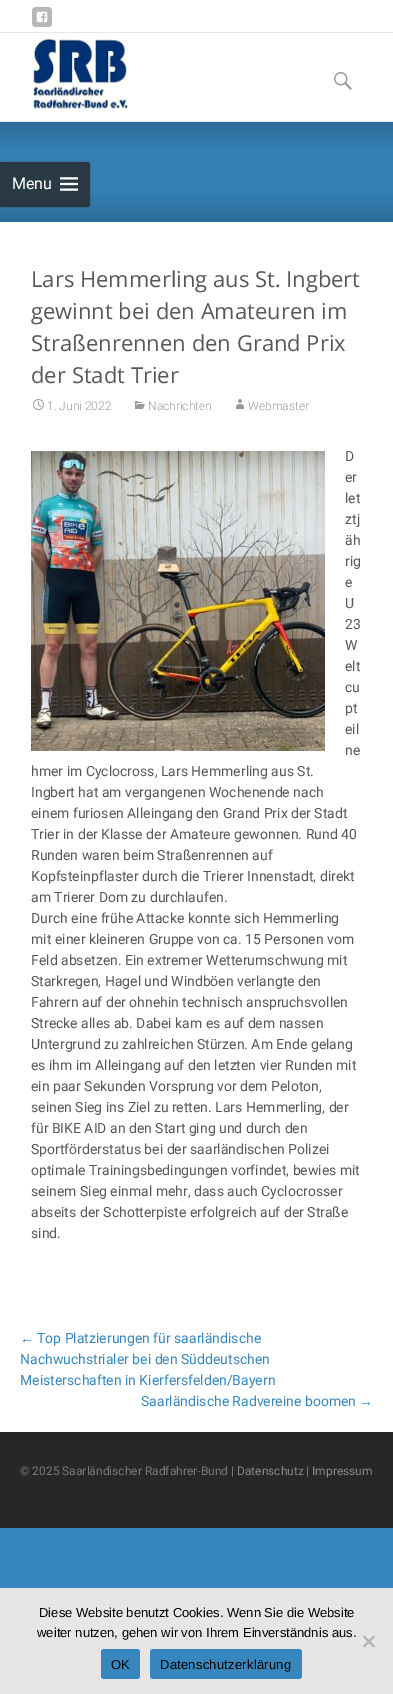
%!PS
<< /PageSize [393 1694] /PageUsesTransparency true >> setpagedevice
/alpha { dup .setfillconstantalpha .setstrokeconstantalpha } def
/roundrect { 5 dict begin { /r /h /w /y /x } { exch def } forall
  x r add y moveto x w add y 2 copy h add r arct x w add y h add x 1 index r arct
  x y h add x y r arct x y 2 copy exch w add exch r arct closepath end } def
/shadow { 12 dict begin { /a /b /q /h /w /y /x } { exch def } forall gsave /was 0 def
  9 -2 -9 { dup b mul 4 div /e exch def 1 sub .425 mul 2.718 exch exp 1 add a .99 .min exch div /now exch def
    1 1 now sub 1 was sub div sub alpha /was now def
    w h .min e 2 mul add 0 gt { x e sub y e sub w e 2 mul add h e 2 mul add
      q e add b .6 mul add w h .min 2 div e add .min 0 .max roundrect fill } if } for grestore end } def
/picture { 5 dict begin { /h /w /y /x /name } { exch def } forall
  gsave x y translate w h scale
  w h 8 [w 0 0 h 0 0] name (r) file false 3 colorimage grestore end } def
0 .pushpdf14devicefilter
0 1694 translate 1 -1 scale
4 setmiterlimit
1 setgray
0 0 393 1694 rectfill
(img1.rgb) 0 1528 393 60 picture
0.906 setgray
0 32 393 1 rectfill
0.718 setgray
32 7 20 20 4 roundrect fill
(img2.rgb) 36 11 12 12 picture
gsave newpath 0 122 moveto 393 122 lineto 393 222 lineto 0 222 lineto closepath clip newpath
<< /ShadingType 2 /ColorSpace /DeviceRGB /Coords [197 122 197 222] /Extend [true true] /Function << /FunctionType 3 /Domain [0 1] /Functions [<< /FunctionType 2 /Domain [0 1] /C0 [0.173 0.424 0.596] /C1 [0.204 0.502 0.71] /N 1 >> << /FunctionType 2 /Domain [0 1] /C0 [0.204 0.502 0.71] /C1 [0.204 0.502 0.71] /N 1 >> << /FunctionType 2 /Domain [0 1] /C0 [0.204 0.502 0.71] /C1 [0.173 0.424 0.596] /N 1 >>] /Bounds [0.3 0.69] /Encode [0 1 0 1 0 1] >> >> shfill grestore
0.906 setgray
0 121 393 1 rectfill
(img3.rgb) 32 37 96 72 picture
(img4.rgb) 334 72 18 18 picture
gsave
newpath 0 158 moveto 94 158 lineto 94 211 lineto 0 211 lineto closepath 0 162 moveto 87 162 lineto 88.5 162 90 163.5 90 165 curveto 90 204 lineto 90 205.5 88.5 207 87 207 curveto 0 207 lineto closepath eoclip newpath
0.196 setgray
0 162 90 45 3 1 0.64 shadow
grestore
0.8 alpha
0.157 setgray
newpath 0 162 moveto 87 162 lineto 88.5 162 90 163.5 90 165 curveto 90 204 lineto 90 205.5 88.5 207 87 207 curveto 0 207 lineto closepath fill
/Roboto-Regular [16 0 0 -16 0 0] selectfont
1 alpha
1 setgray
12 189 moveto (Menu) show
(img5.rgb) 60 177 18 14 picture
/OpenSans-Regular [22 0 0 -22 0 0] selectfont
0.341 setgray
31 287 moveto (Lars Hemmerling aus St. Ingbert) show
31 319 moveto (gewinnt bei den Amateuren im) show
31 351 moveto (Straßenrennen den Grand Prix) show
31 383 moveto (der Stadt Trier) show
(img6.rgb) 33 399 11 11 picture
/Roboto-Light [12 0 0 -12 0 0] selectfont
0.6 setgray
47 410 moveto (1. Juni 2022) show
(img7.rgb) 135 401 10 8 picture
148 410 moveto (Nachrichten) show
(img8.rgb) 236 399 8 10 picture
248 410 moveto (Webmaster) show
(img9.rgb) 31 451 294 300 picture
/Roboto-Regular [14 0 0 -14 0 0] selectfont
0.341 setgray
345 461 moveto (D) show
345 482 moveto (er) show
345 503 moveto (let) show
345 524 moveto (ztj) show
345 545 moveto (äh) show
345 566 moveto (rig) show
345 587 moveto (e) show
345 608 moveto (U) show
345 629 moveto (23) show
345 650 moveto (W) show
345 671 moveto (elt) show
345 692 moveto (cu) show
345 713 moveto (pt) show
345 734 moveto (eil) show
345 755 moveto (ne) show
31 776 moveto (hmer im Cyclocross, Lars Hemmerling aus St.) show
31 797 moveto (Ingbert hat am vergangenen Wochenende nach) show
31 818 moveto (einem furiosen Alleingang den Grand Prix der Stadt) show
31 839 moveto (Trier in der Klasse der Amateure gewonnen. Rund 40) show
31 860 moveto (Runden waren beim Straßenrennen auf) show
31 881 moveto (Kopfsteinpflaster durch die Trierer Innenstadt, direkt) show
31 902 moveto (am Trierer Dom zu durchlaufen.) show
31 923 moveto (Durch eine frühe Attacke konnte sich Hemmerling) show
31 944 moveto (mit einer kleineren Gruppe von ca. 15 Personen vom) show
31 965 moveto (Feld absetzen. Ein extremer Wetterumschwung mit) show
31 986 moveto (Starkregen, Hagel und Windböen verlangte den) show
31 1007 moveto (Fahrern auf der ohnehin technisch anspruchsvollen) show
31 1028 moveto (Strecke alles ab. Dabei kam es auf dem nassen) show
31 1049 moveto (Untergrund zu zahlreichen Stürzen. Am Ende gelang) show
31 1070 moveto (es ihm im Alleingang auf den letzten vier Runden mit) show
31 1091 moveto (ein paar Sekunden Vorsprung vor dem Peloton,) show
31 1112 moveto (seinen Sieg ins Ziel zu retten. Lars Hemmerling, der) show
31 1133 moveto (für BIKE AID an den Start ging und durch den) show
31 1154 moveto (Sportförderstatus bei der saarländischen Polizei) show
31 1175 moveto (optimale Trainingsbedingungen vorfindet, bewies mit) show
31 1196 moveto (seinem Sieg einmal mehr, dass auch Cyclocrosser) show
31 1217 moveto (abseits der Schotterpiste erfolgreich auf der Straße) show
31 1238 moveto (sind.) show
/LiberationSans-Regular [14 0 0 -14 0 0] selectfont
0.216 0.529 0.745 setrgbcolor
20 1343 moveto (←) show
/Roboto-Regular [14 0 0 -14 0 0] selectfont
37 1343 moveto (Top Platzierungen für saarländische) show
20 1364 moveto (Nachwuchstrialer bei den Süddeutschen) show
20 1385 moveto (Meisterschaften in Kierfersfelden/Bayern) show
141 1406 moveto (Saarländische Radvereine boomen) show
/LiberationSans-Regular [14 0 0 -14 0 0] selectfont
359 1406 moveto (→) show
0.153 setgray
0 1432 393 96 rectfill
/Roboto-Regular [12 0 0 -12 0 0] selectfont
0.467 setgray
20 1475 moveto (© 2025 Saarländischer Radfahrer-Bund |) show
0.529 setgray
237 1475 moveto (Datenschutz) show
0.467 setgray
306 1475 moveto (|) show
0.529 setgray
312 1475 moveto (Impressum) show
0.902 setgray
0 1588 393 106 rectfill
/LiberationSans-Regular [13 0 0 -13 0 0] selectfont
0 setgray
39 1617 moveto (Diese Website benutzt Cookies. Wenn Sie die Website) show
37 1637 moveto (weiter nutzen, gehen wir von Ihrem Einverständnis aus.) show
0.702 setgray
newpath 373.5 1635.5 moveto 375 1637 lineto 364.5 1647.5 lineto 363 1646 lineto closepath fill
newpath 363 1637 moveto 364.5 1635.5 lineto 375 1646 lineto 373.5 1647.5 lineto closepath fill
0.216 0.529 0.745 setrgbcolor
101 1649 39 30 3 roundrect fill
0 setgray
111 1669 moveto 0.25 0 (OK) ashow
0.216 0.529 0.745 setrgbcolor
150 1649 152 30 3 roundrect fill
0 setgray
160 1669 moveto 0.25 0 (Datenschutzerklärung) ashow
.poppdf14devicefilter showpage
